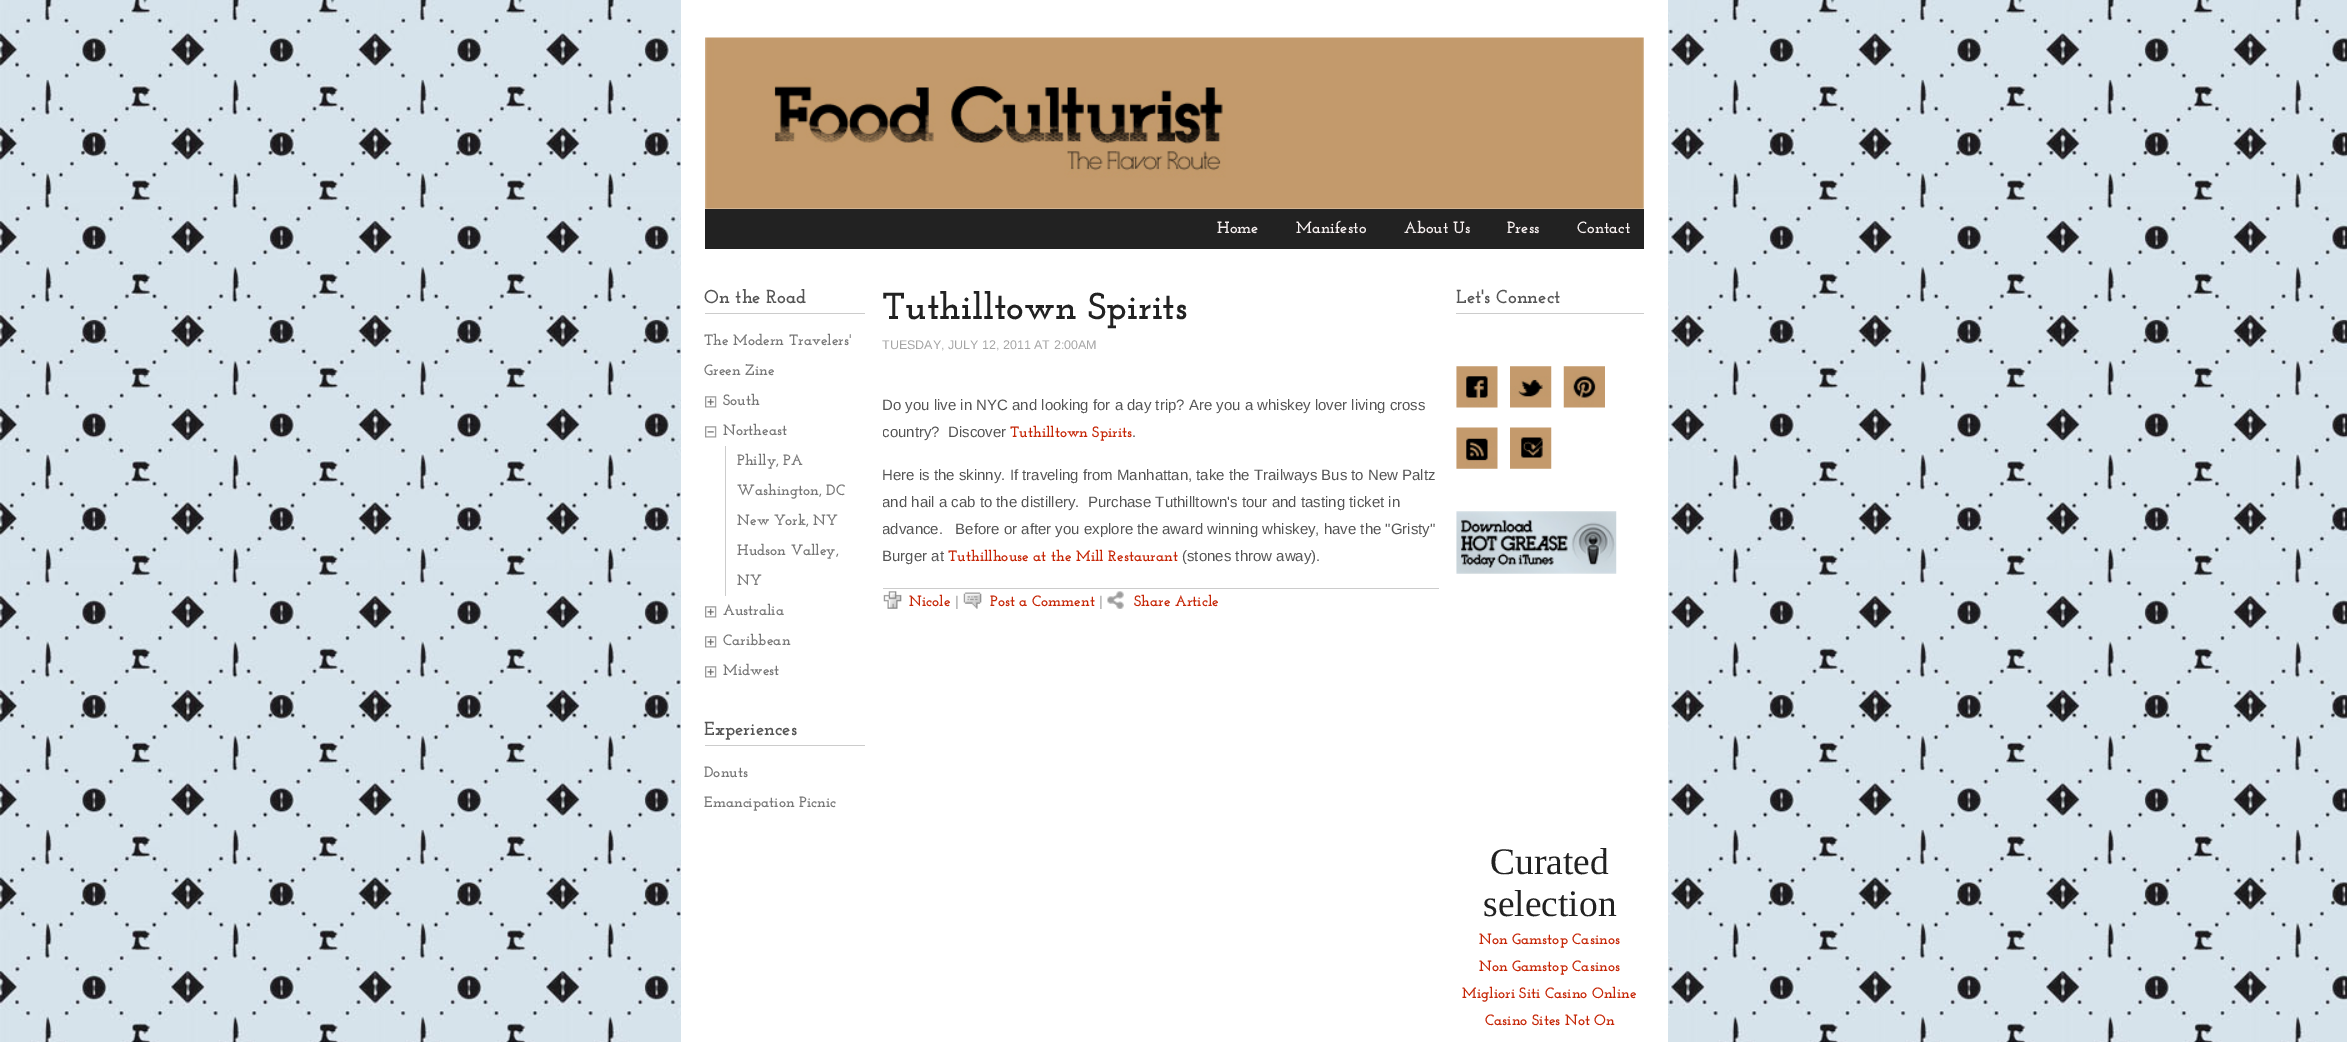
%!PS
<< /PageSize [2347 1042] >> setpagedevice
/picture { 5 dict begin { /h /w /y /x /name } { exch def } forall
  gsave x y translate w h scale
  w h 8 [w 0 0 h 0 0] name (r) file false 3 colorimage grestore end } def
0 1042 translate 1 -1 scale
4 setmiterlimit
1 setgray
0 0 2347 1042 rectfill
(img1.rgb) 0 0 2347 1042 picture
681 0 987 1042 rectfill
(img2.rgb) 705 37 939 172 picture
0.133 setgray
705 209 939 40 rectfill
/JosefinSlab-Bold [16.25 0 0 -16.25 0 0] selectfont
0.965 0.937 0.937 setrgbcolor
1217 233 moveto (Home) show
1296 233 moveto (Manifesto) show
1404 233 moveto (About Us) show
1507 233 moveto (Press) show
1577 233 moveto (Contact) show
0.8 setgray
705 313 160 1 rectfill
/JosefinSlab-Bold [18.75 0 0 -18.75 0 0] selectfont
0.333 setgray
704 303 moveto (On the Road) show
/JosefinSlab-Bold [15 0 0 -15 0 0] selectfont
0.467 setgray
704 345 moveto (The Modern Travelers') show
704 375 moveto (Green Zine) show
(img3.rgb) 705 396 12 12 picture
723 405 moveto (South) show
(img4.rgb) 705 426 12 12 picture
723 435 moveto (Northeast) show
0.8 setgray
725 446 1 150 rectfill
0.467 setgray
737 465 moveto (Philly, PA) show
737 495 moveto (Washington, DC) show
737 525 moveto (New York, NY) show
737 555 moveto (Hudson Valley,) show
737 585 moveto (NY) show
(img3.rgb) 705 606 12 12 picture
723 615 moveto (Australia) show
(img3.rgb) 705 636 12 12 picture
723 645 moveto (Caribbean) show
(img3.rgb) 705 666 12 12 picture
723 675 moveto (Midwest) show
0.8 setgray
705 745 160 1 rectfill
/JosefinSlab-Bold [18.75 0 0 -18.75 0 0] selectfont
0.333 setgray
704 735 moveto (Experiences) show
/JosefinSlab-Bold [15 0 0 -15 0 0] selectfont
0.467 setgray
704 777 moveto (Donuts) show
704 807 moveto (Emancipation Picnic) show
/JosefinSlab-Bold [37.5 0 0 -37.5 0 0] selectfont
0.133 setgray
882 319 moveto (Tuthilltown Spirits) show
/LiberationSans-Regular [12.5 0 0 -12.5 0 0] selectfont
0.651 setgray
882 349 moveto (TUESDAY, JULY 12, 2011 AT 2:00AM) show
/LiberationSans-Regular [15 0 0 -15 0 0] selectfont
0.333 setgray
882 410 moveto (Do you live in NYC and looking for a day trip? Are you a whiskey lover living cross) show
gsave
883 286 556 368 rectclip
882 437 moveto (country?  Discover) show
grestore
/JosefinSlab-Bold [15 0 0 -15 0 0] selectfont
0.776 0.149 0.024 setrgbcolor
1010 437 moveto (Tuthilltown Spirits) show
/LiberationSans-Regular [15 0 0 -15 0 0] selectfont
0.333 setgray
1132 437 moveto (.) show
882 480 moveto (Here is the skinny. If traveling from Manhattan, take the Trailways Bus to New Paltz) show
gsave
883 286 556 368 rectclip
882 507 moveto (and hail a cab to the distillery.  Purchase Tuthilltown's tour and tasting ticket in) show
882 534 moveto (advance.   Before or after you explore the award winning whiskey, have the "Gristy") show
grestore
882 561 moveto (Burger at) show
/JosefinSlab-Bold [15 0 0 -15 0 0] selectfont
0.776 0.149 0.024 setrgbcolor
948 561 moveto (Tuthillhouse at the Mill Restaurant) show
/LiberationSans-Regular [15 0 0 -15 0 0] selectfont
0.333 setgray
1182 561 moveto (\(stones throw away\).) show
0.8 setgray
883 588 556 1 rectfill
(img5.rgb) 883 591 19 18 picture
/JosefinSlab-Bold [15 0 0 -15 0 0] selectfont
0.776 0.149 0.024 setrgbcolor
909 606 moveto (Nicole) show
/LiberationSans-Regular [14 0 0 -14 0 0] selectfont
0.651 setgray
955 606 moveto (|) show
(img6.rgb) 963 592 19 17 picture
/JosefinSlab-Bold [15 0 0 -15 0 0] selectfont
0.776 0.149 0.024 setrgbcolor
990 606 moveto (Post a Comment) show
/LiberationSans-Regular [14 0 0 -14 0 0] selectfont
0.651 setgray
1099 606 moveto (|) show
(img7.rgb) 1107 591 17 18 picture
/JosefinSlab-Bold [15 0 0 -15 0 0] selectfont
0.776 0.149 0.024 setrgbcolor
1134 606 moveto (Share Article) show
0.8 setgray
1456 313 188 1 rectfill
/JosefinSlab-Bold [18.75 0 0 -18.75 0 0] selectfont
0.333 setgray
1456 303 moveto (Let's Connect) show
(img8.rgb) 1456 366 42 42 picture
(img9.rgb) 1510 366 42 42 picture
(img10.rgb) 1563 366 42 42 picture
(img11.rgb) 1456 427 42 42 picture
(img12.rgb) 1510 427 42 42 picture
(img13.rgb) 1456 511 161 63 picture
/LiberationSerif-Regular [37.5 0 0 -37.5 0 0] selectfont
0.133 setgray
1490 874 moveto (Curated) show
1483 916 moveto (selection) show
/JosefinSlab-Bold [15 0 0 -15 0 0] selectfont
0.776 0.149 0.024 setrgbcolor
1479 944 moveto (Non Gamstop Casinos) show
1479 971 moveto (Non Gamstop Casinos) show
1462 998 moveto (Migliori Siti Casino Online) show
1485 1025 moveto (Casino Sites Not On) show
showpage
